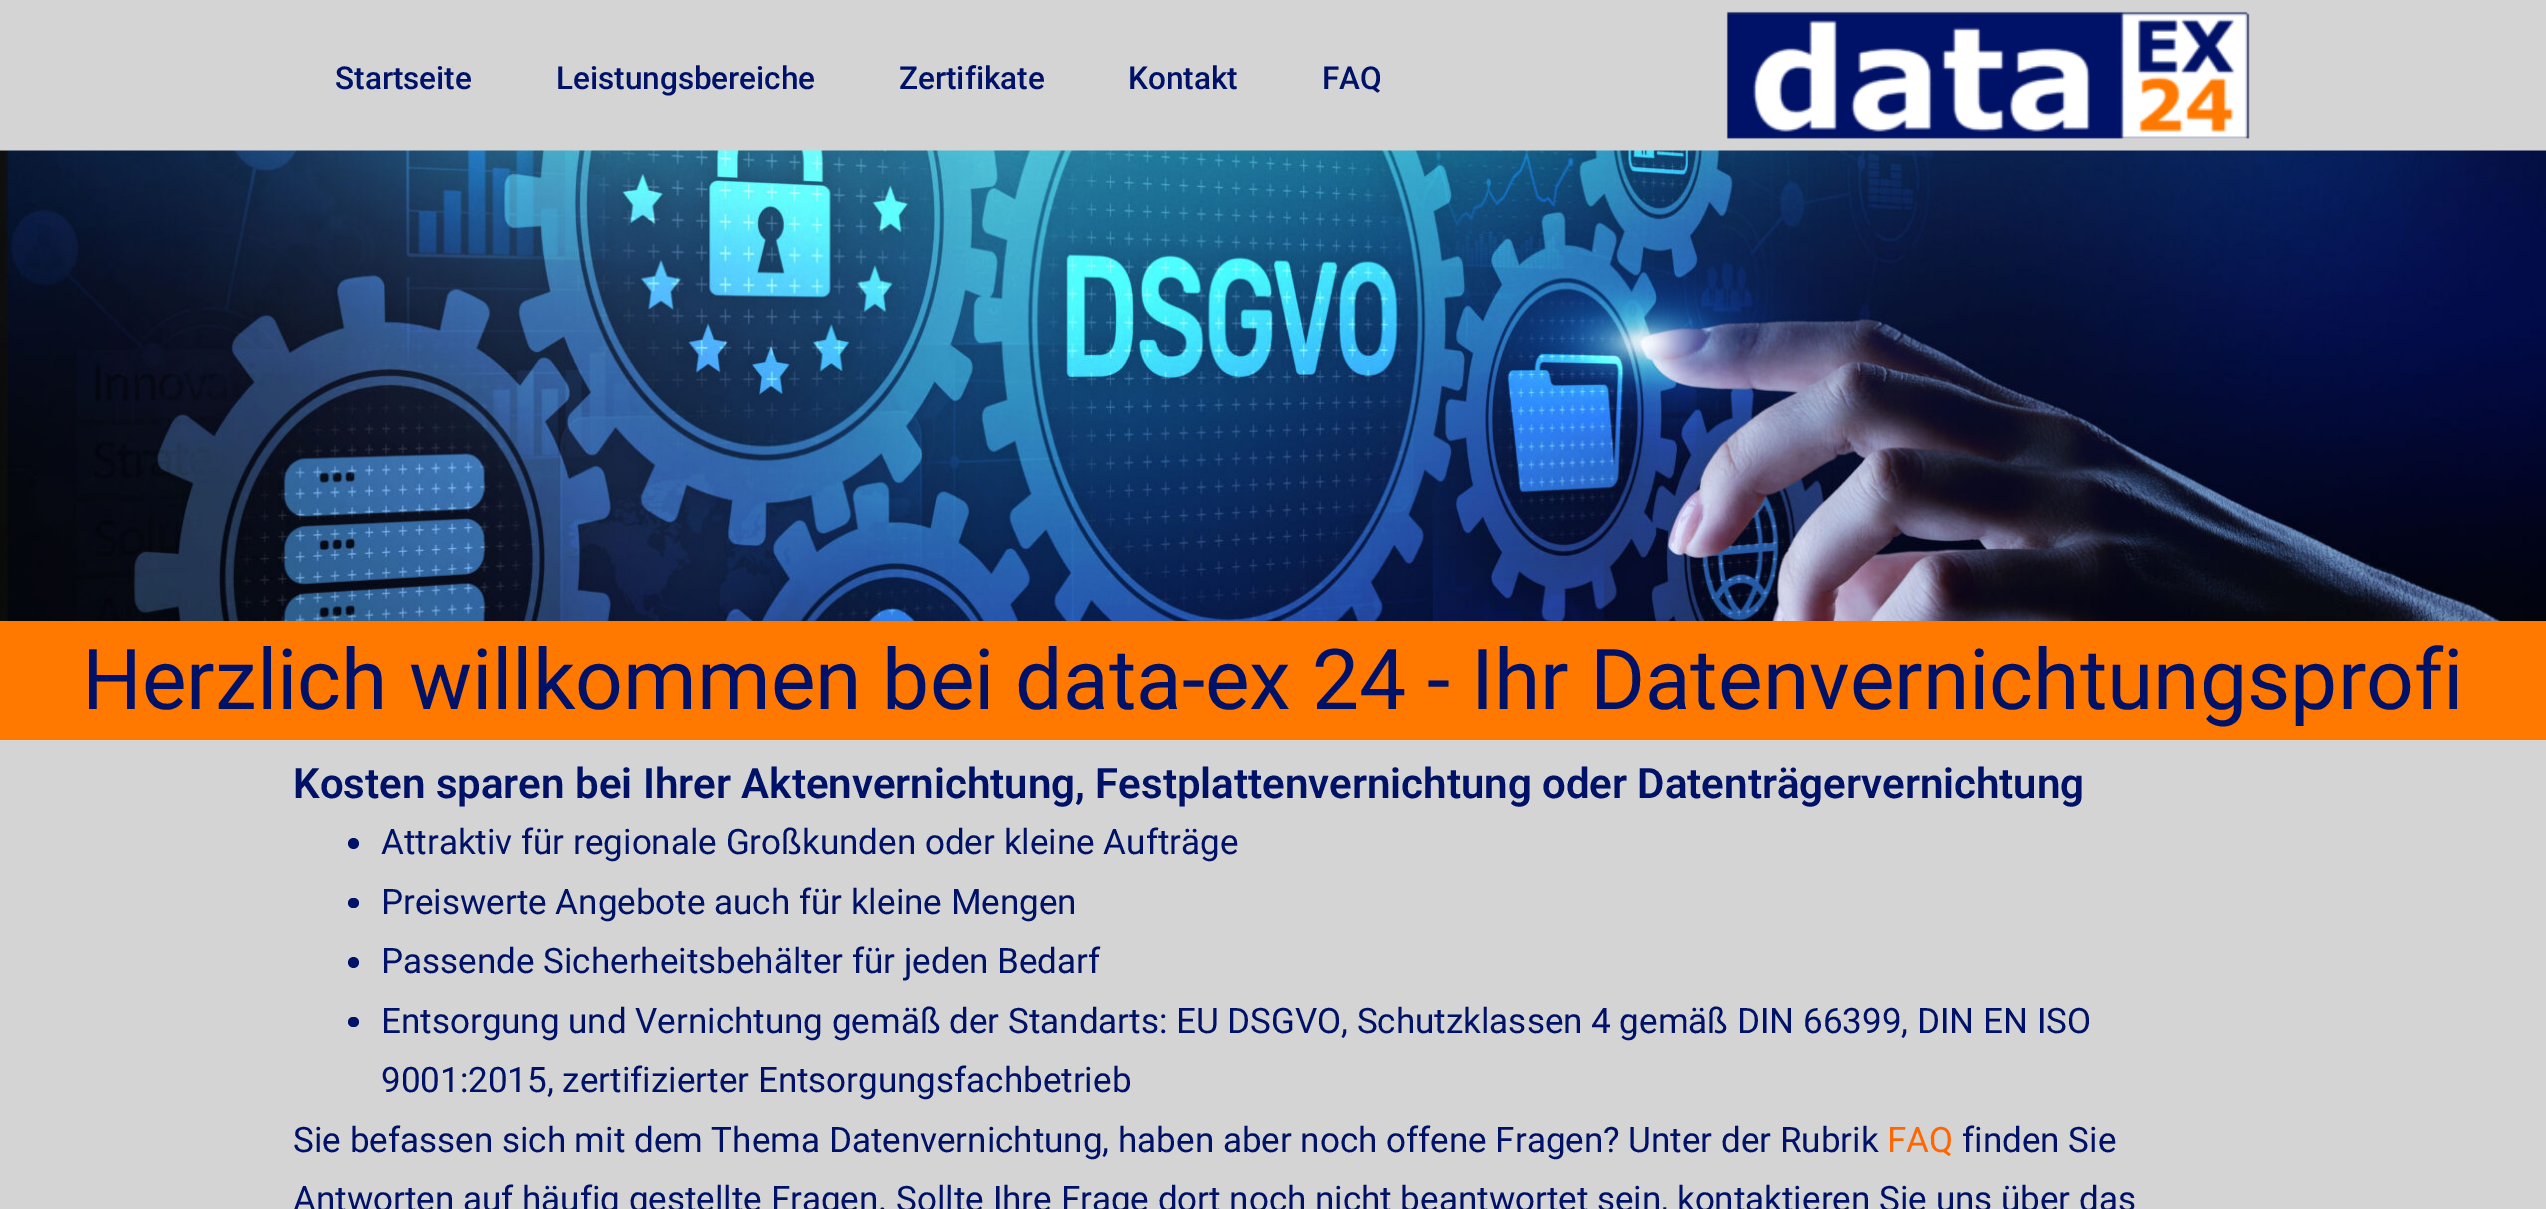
%!PS
<< /PageSize [2546 1209] >> setpagedevice
/roundrect { 5 dict begin { /r /h /w /y /x } { exch def } forall
  x r add y moveto x w add y 2 copy h add r arct x w add y h add x 1 index r arct
  x y h add x y r arct x y 2 copy exch w add exch r arct closepath end } def
/picture { 5 dict begin { /h /w /y /x /name } { exch def } forall
  gsave x y translate w h scale
  w h 8 [w 0 0 h 0 0] name (r) file false 3 colorimage grestore end } def
0 1209 translate 1 -1 scale
4 setmiterlimit
0.835 0.831 0.831 setrgbcolor
0 0 2546 1209 rectfill
/Roboto-Medium [31.5 0 0 -31.5 0 0] selectfont
0 0.071 0.408 setrgbcolor
335 89 moveto (Startseite) show
556 89 moveto (Leistungsbereiche) show
899 89 moveto (Zertifikate) show
1128 89 moveto (Kontakt) show
1322 89 moveto (FAQ) show
(img1.rgb) 1726 11 524 128 picture
(img2.rgb) 0 150 2546 471 picture
1 0.471 0 setrgbcolor
0 621 2546 119 rectfill
/Roboto-Regular [84 0 0 -84 0 0] selectfont
0 0.071 0.408 setrgbcolor
82 709 moveto (Herzlich willkommen bei data-ex 24 - Ihr Datenvernichtungsprofi) show
/Roboto-SemiBold [42 0 0 -42 0 0] selectfont
293 798 moveto (Kosten sparen bei Ihrer Aktenvernichtung, Festplattenvernichtung oder Datenträgervernichtung) show
newpath 353.5 843.5 5.5 0 360 arc closepath fill
/Roboto-Regular [35 0 0 -35 0 0] selectfont
381 854 moveto (Attraktiv für regionale Großkunden oder kleine Aufträge) show
348 898 11 10 5 roundrect fill
381 914 moveto (Preiswerte Angebote auch für kleine Mengen) show
newpath 353.5 962.5 5.5 0 360 arc closepath fill
381 973 moveto (Passende Sicherheitsbehälter für jeden Bedarf) show
348 1017 11 10 5 roundrect fill
381 1033 moveto (Entsorgung und Vernichtung gemäß der Standarts: EU DSGVO, Schutzklassen 4 gemäß DIN 66399, DIN EN ISO) show
381 1092 moveto (9001:2015, zertifizierter Entsorgungsfachbetrieb) show
293 1152 moveto (Sie befassen sich mit dem Thema Datenvernichtung, haben aber noch offene Fragen? Unter der Rubrik) show
1 0.4 0 setrgbcolor
1887 1152 moveto (FAQ) show
0 0.071 0.408 setrgbcolor
1962 1152 moveto (finden Sie) show
293 1211 moveto (Antworten auf häufig gestellte Fragen. Sollte Ihre Frage dort noch nicht beantwortet sein, kontaktieren Sie uns über das) show
showpage
